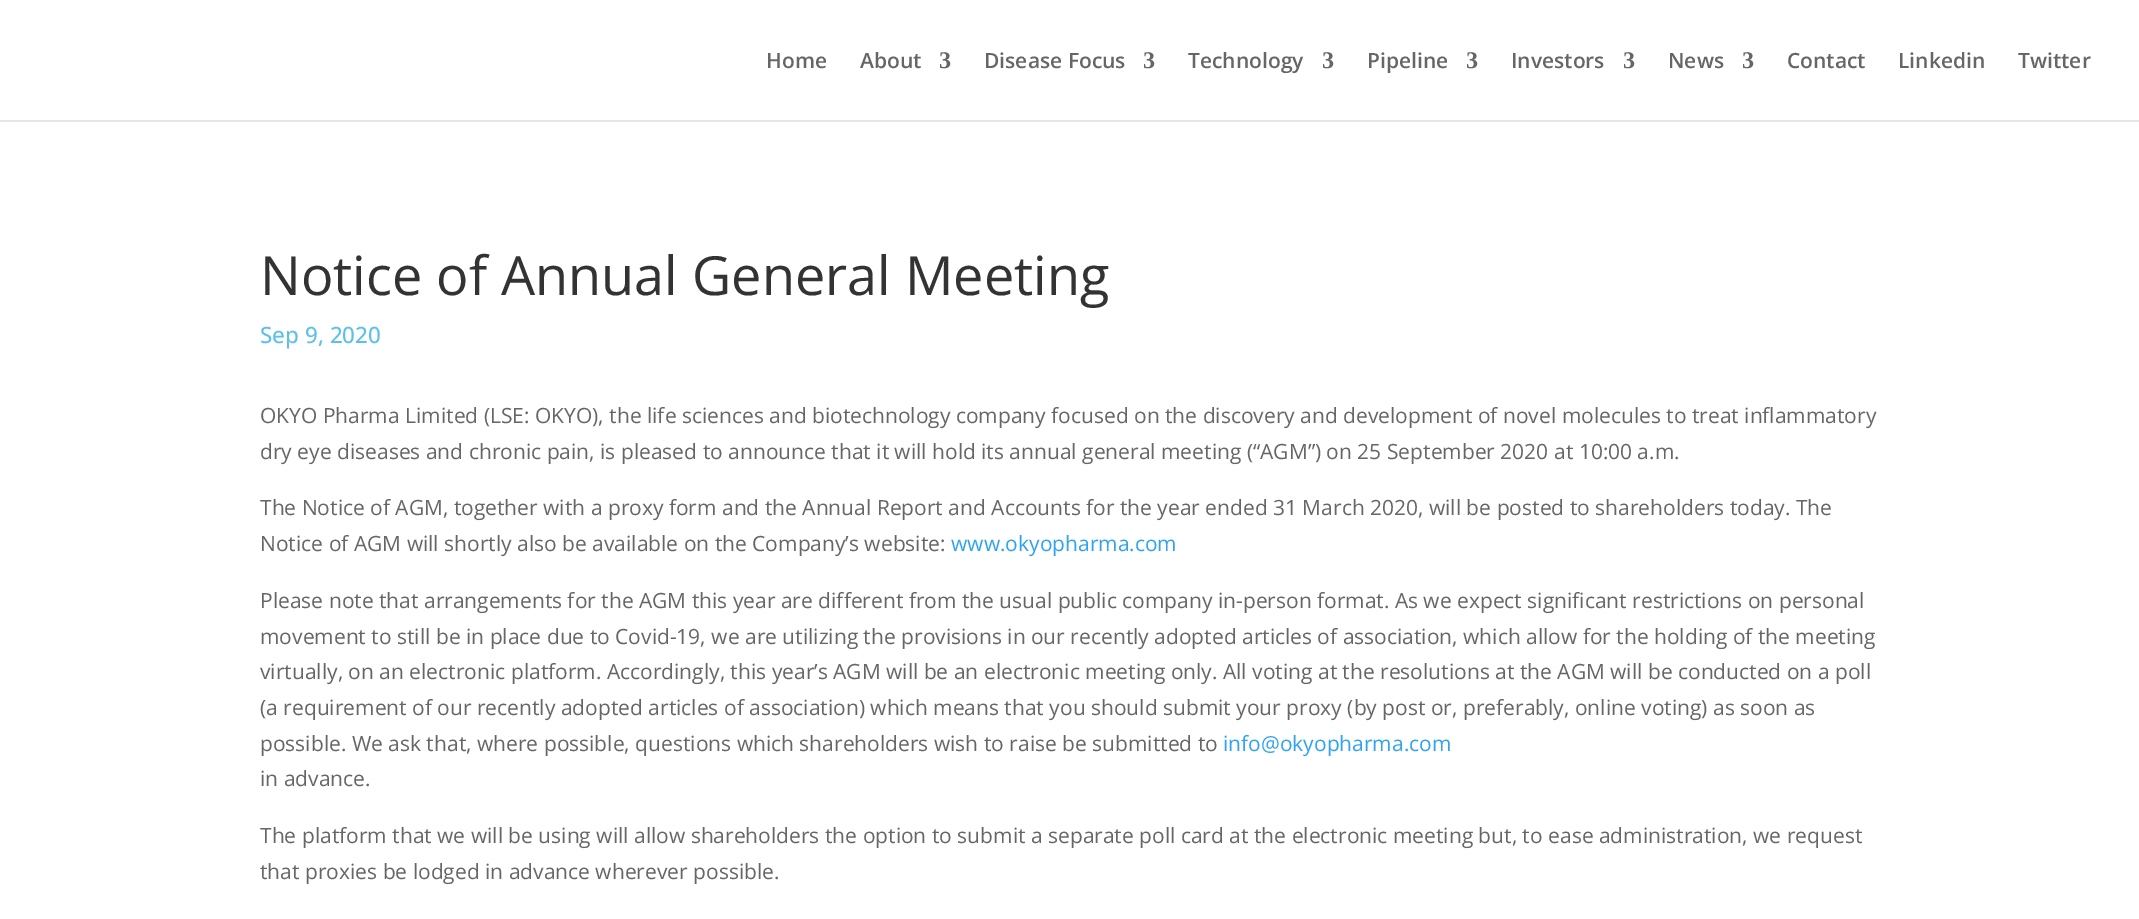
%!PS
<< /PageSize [2139 919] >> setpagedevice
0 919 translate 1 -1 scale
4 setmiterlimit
1 setgray
0 0 2139 919 rectfill
0.902 setgray
0 120 2139 2 rectfill
/OpenSans-SemiBold [21 0 0 -21 0 0] selectfont
0.4 setgray
766 68 moveto (Home) show
860 68 moveto (About) show
/LiberationSerif-Bold [24 0 0 -24 0 0] selectfont
939 68 moveto (3) show
/OpenSans-SemiBold [21 0 0 -21 0 0] selectfont
984 68 moveto (Disease Focus) show
/LiberationSerif-Bold [24 0 0 -24 0 0] selectfont
1143 68 moveto (3) show
/OpenSans-SemiBold [21 0 0 -21 0 0] selectfont
1188 68 moveto (Technology) show
/LiberationSerif-Bold [24 0 0 -24 0 0] selectfont
1322 68 moveto (3) show
/OpenSans-SemiBold [21 0 0 -21 0 0] selectfont
1367 68 moveto (Pipeline) show
/LiberationSerif-Bold [24 0 0 -24 0 0] selectfont
1466 68 moveto (3) show
/OpenSans-SemiBold [21 0 0 -21 0 0] selectfont
1511 68 moveto (Investors) show
/LiberationSerif-Bold [24 0 0 -24 0 0] selectfont
1623 68 moveto (3) show
/OpenSans-SemiBold [21 0 0 -21 0 0] selectfont
1668 68 moveto (News) show
/LiberationSerif-Bold [24 0 0 -24 0 0] selectfont
1742 68 moveto (3) show
/OpenSans-SemiBold [21 0 0 -21 0 0] selectfont
1787 68 moveto (Contact) show
1898 68 moveto (Linkedin) show
2018 68 moveto (Twitter) show
/OpenSans-Regular [54 0 0 -54 0 0] selectfont
0.2 setgray
260 295 moveto (Notice of Annual General Meeting) show
/OpenSans-Medium [22.5 0 0 -22.5 0 0] selectfont
0.357 0.753 0.922 setrgbcolor
260 343 moveto (Sep 9, 2020) show
/OpenSans-Regular [21 0 0 -21 0 0] selectfont
0.4 setgray
260 423 moveto (OKYO Pharma Limited \(LSE: OKYO\), the life sciences and biotechnology company focused on the discovery and development of novel molecules to treat inflammatory) show
260 459 moveto (dry eye diseases and chronic pain, is pleased to announce that it will hold its annual general meeting \(“AGM”\) on 25 September 2020 at 10:00 a.m.) show
260 515 moveto (The Notice of AGM, together with a proxy form and the Annual Report and Accounts for the year ended 31 March 2020, will be posted to shareholders today. The) show
260 551 moveto (Notice of AGM will shortly also be available on the Company’s website:) show
0.18 0.639 0.949 setrgbcolor
951 551 moveto (www.okyopharma.com) show
0.4 setgray
260 608 moveto (Please note that arrangements for the AGM this year are different from the usual public company in-person format. As we expect significant restrictions on personal) show
260 644 moveto (movement to still be in place due to Covid-19, we are utilizing the provisions in our recently adopted articles of association, which allow for the holding of the meeting) show
260 679 moveto (virtually, on an electronic platform. Accordingly, this year’s AGM will be an electronic meeting only. All voting at the resolutions at the AGM will be conducted on a poll) show
260 715 moveto (\(a requirement of our recently adopted articles of association\) which means that you should submit your proxy \(by post or, preferably, online voting\) as soon as) show
260 751 moveto (possible. We ask that, where possible, questions which shareholders wish to raise be submitted to) show
0.18 0.639 0.949 setrgbcolor
1223 751 moveto (info@okyopharma.com) show
0.4 setgray
260 786 moveto (in advance.) show
260 843 moveto (The platform that we will be using will allow shareholders the option to submit a separate poll card at the electronic meeting but, to ease administration, we request) show
260 879 moveto (that proxies be lodged in advance wherever possible.) show
showpage
